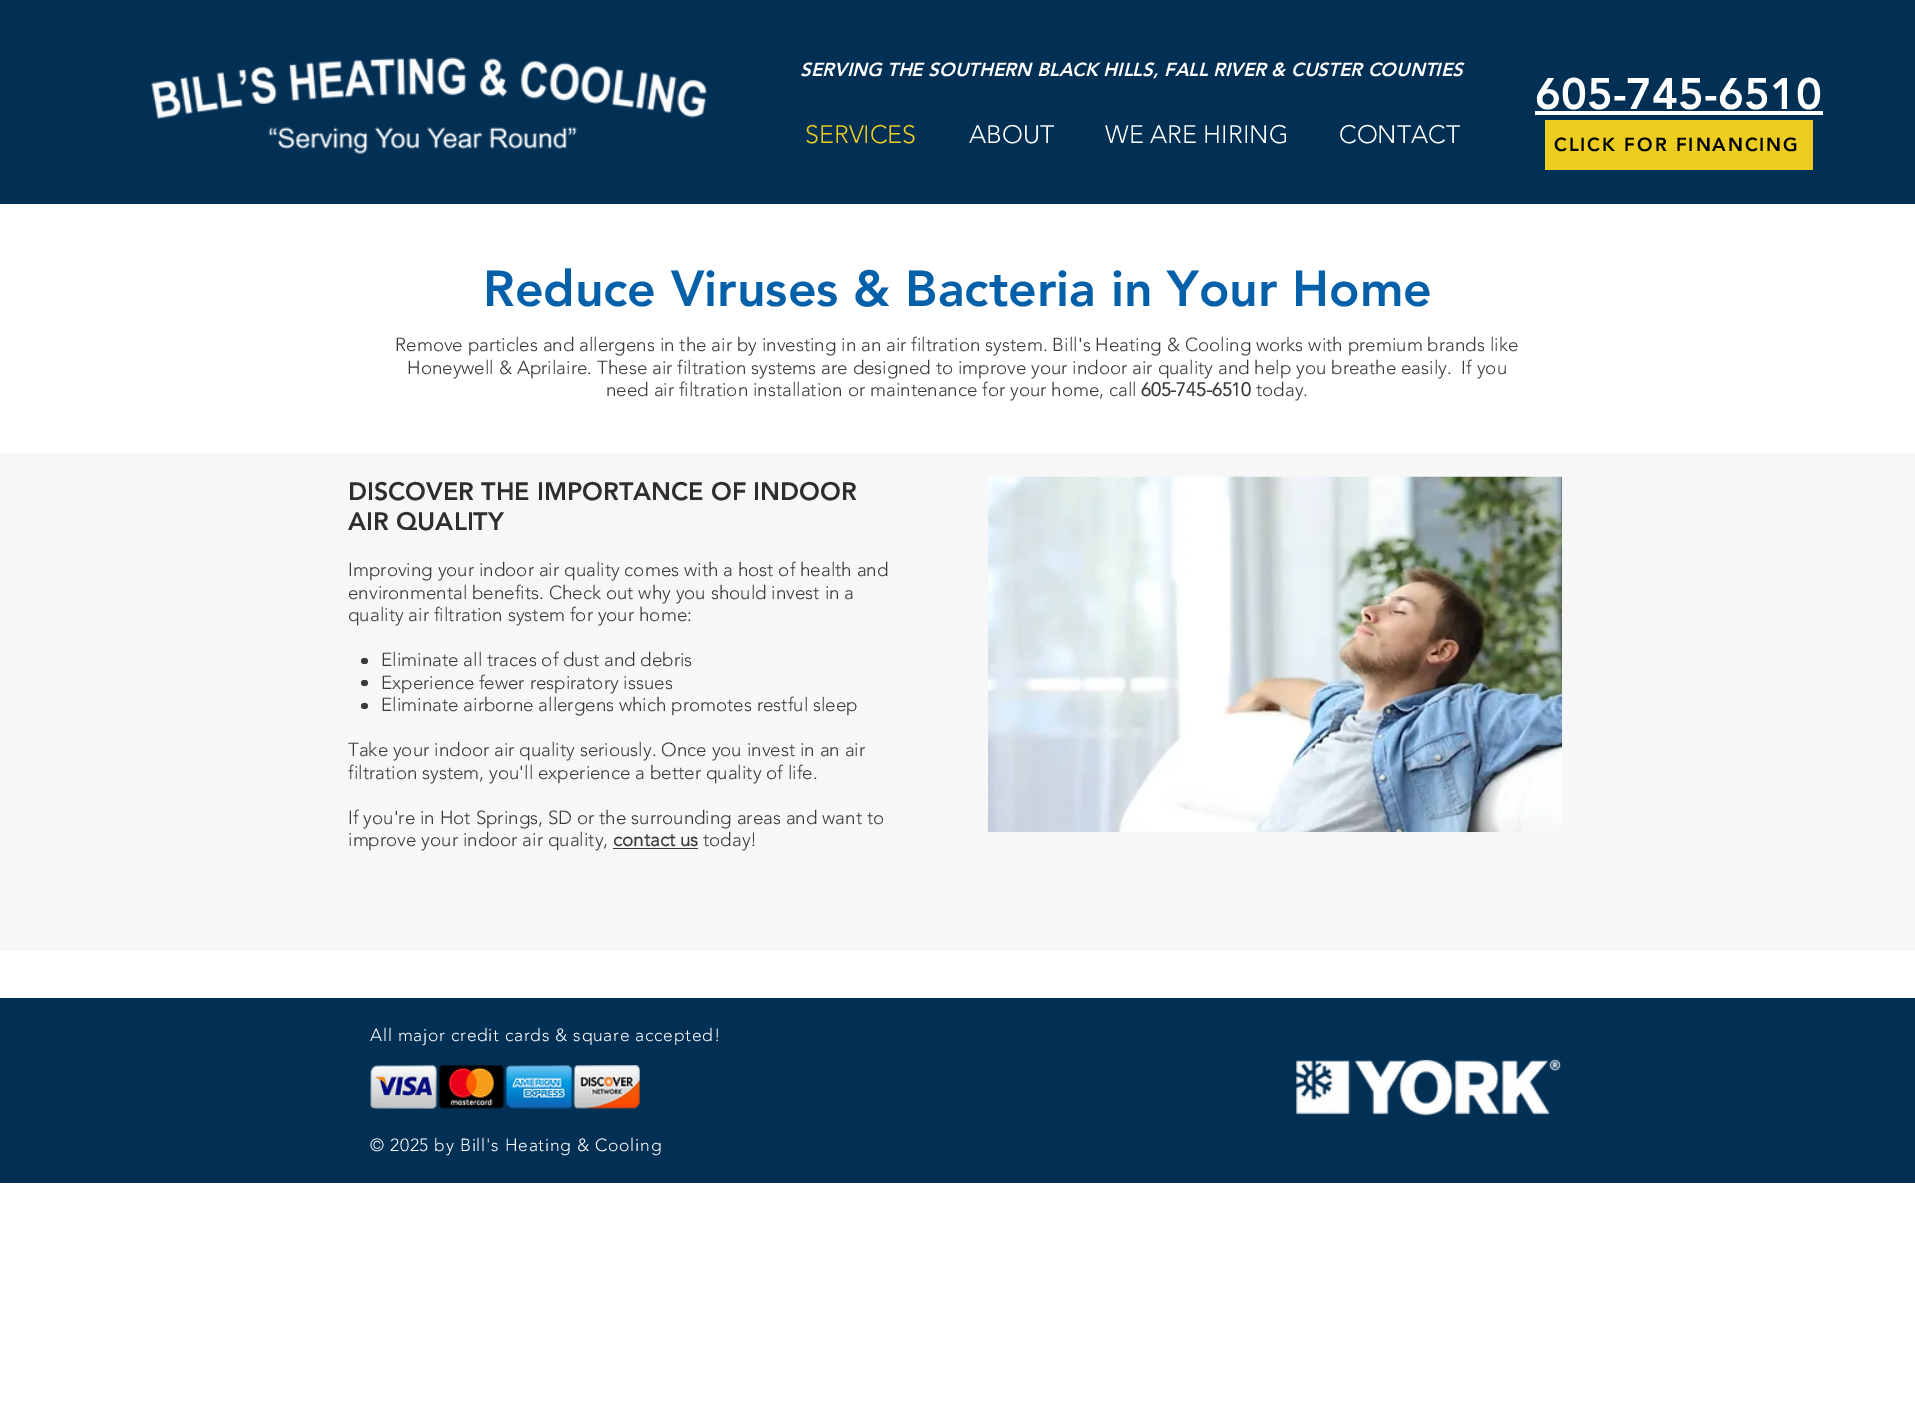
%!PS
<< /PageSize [1915 1403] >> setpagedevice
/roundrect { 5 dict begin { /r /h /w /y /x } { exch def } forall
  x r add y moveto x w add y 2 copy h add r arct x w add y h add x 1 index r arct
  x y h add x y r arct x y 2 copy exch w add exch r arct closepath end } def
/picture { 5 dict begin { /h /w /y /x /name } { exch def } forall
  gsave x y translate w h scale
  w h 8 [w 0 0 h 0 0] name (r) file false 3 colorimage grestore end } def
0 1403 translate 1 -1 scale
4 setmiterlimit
1 setgray
0 0 1915 1403 rectfill
0.008 0.188 0.333 setrgbcolor
0 0 1915 204 rectfill
(img1.rgb) 151 57 556 97 picture
/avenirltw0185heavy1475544-BlackItalic [18.75 0 0 -18.75 0 0] selectfont
1 setgray
800 76 moveto (SERVING THE SOUTHERN BLACK HILLS, FALL RIVER & CUSTER COUNTIES) show
/avenirltw0185heavy1475544-Black [43.75 0 0 -43.75 0 0] selectfont
1535 109 moveto (605-745-6510) show
1535 111 288 4 rectfill
/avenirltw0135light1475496-Light [25 0 0 -25 0 0] selectfont
0.929 0.804 0.122 setrgbcolor
805 143 moveto (SERVICES) show
1 setgray
969 143 moveto (ABOUT) show
1105 143 moveto (WE ARE HIRING) show
1339 143 moveto (CONTACT) show
0.929 0.804 0.122 setrgbcolor
1545 120 268 50 rectfill
/avenirltw0185heavy1475544-Black [18.75 0 0 -18.75 0 0] selectfont
0 setgray
1554 151 moveto 1.9 0 (CLICK FOR FINANCING) ashow
/avenirltw0185heavy1475544-Black [50 0 0 -50 0 0] selectfont
0.02 0.376 0.667 setrgbcolor
483 306 moveto (Reduce Viruses & Bacteria in Your Home) show
/avenirltw0135light1475496-Light [18.75 0 0 -18.75 0 0] selectfont
0.231 0.227 0.227 setrgbcolor
395 351 moveto (Remove particles and allergens in the air by investing in an air filtration system. Bill's Heating & Cooling works with premium brands like) show
407 374 moveto (Honeywell & Aprilaire. These air filtration systems are designed to improve your indoor air quality and help you breathe easily.  If you) show
606 396 moveto (need air filtration installation or maintenance for your home, call) show
/avenirltw0135light1475496-Bold [18.75 0 0 -18.75 0 0] selectfont
1141 396 moveto (605-745-6510) show
/avenirltw0135light1475496-Light [18.75 0 0 -18.75 0 0] selectfont
1256 396 moveto (today.) show
0.969 setgray
0 453 1915 498 rectfill
/avenirltw0185heavy1475544-Black [25 0 0 -25 0 0] selectfont
0.184 0.18 0.18 setrgbcolor
348 500 moveto (DISCOVER THE IMPORTANCE OF INDOOR) show
348 530 moveto (AIR QUALITY) show
/avenirltw0135light1475496-Light [18.75 0 0 -18.75 0 0] selectfont
0.231 0.227 0.227 setrgbcolor
348 576 moveto (Improving your indoor air quality comes with a host of health and) show
348 599 moveto (environmental benefits. Check out why you should invest in a) show
348 621 moveto (quality air filtration system for your home:) show
361 658 7 6 3 roundrect fill
381 666 moveto (Eliminate all traces of dust and debris) show
361 680 7 6 3 roundrect fill
381 689 moveto (Experience fewer respiratory issues) show
361 703 7 6 3 roundrect fill
381 711 moveto (Eliminate airborne allergens which promotes restful sleep) show
348 756 moveto (Take your indoor air quality seriously. Once you invest in an air) show
348 779 moveto (filtration system, you'll experience a better quality of life.) show
348 824 moveto (If you're in Hot Springs, SD or the surrounding areas and want to) show
348 846 moveto (improve your indoor air quality,) show
/avenirltw0135light1475496-Bold [18.75 0 0 -18.75 0 0] selectfont
613 846 moveto (contact us) show
613 848 85 1 rectfill
/avenirltw0135light1475496-Light [18.75 0 0 -18.75 0 0] selectfont
703 846 moveto (today!) show
(img2.rgb) 988 476 575 357 picture
0.008 0.188 0.333 setrgbcolor
0 998 1915 185 rectfill
/avenirltw0135light1475496-Light [17.5 0 0 -17.5 0 0] selectfont
1 setgray
370 1041 moveto 0.7 0 (All major credit cards & square accepted!) ashow
(img3.rgb) 370 1065 270 44 picture
(img4.rgb) 1296 1059 265 57 picture
370 1151 moveto 0.7 0 (© 2025 by Bill's Heating & Cooling) ashow
showpage
